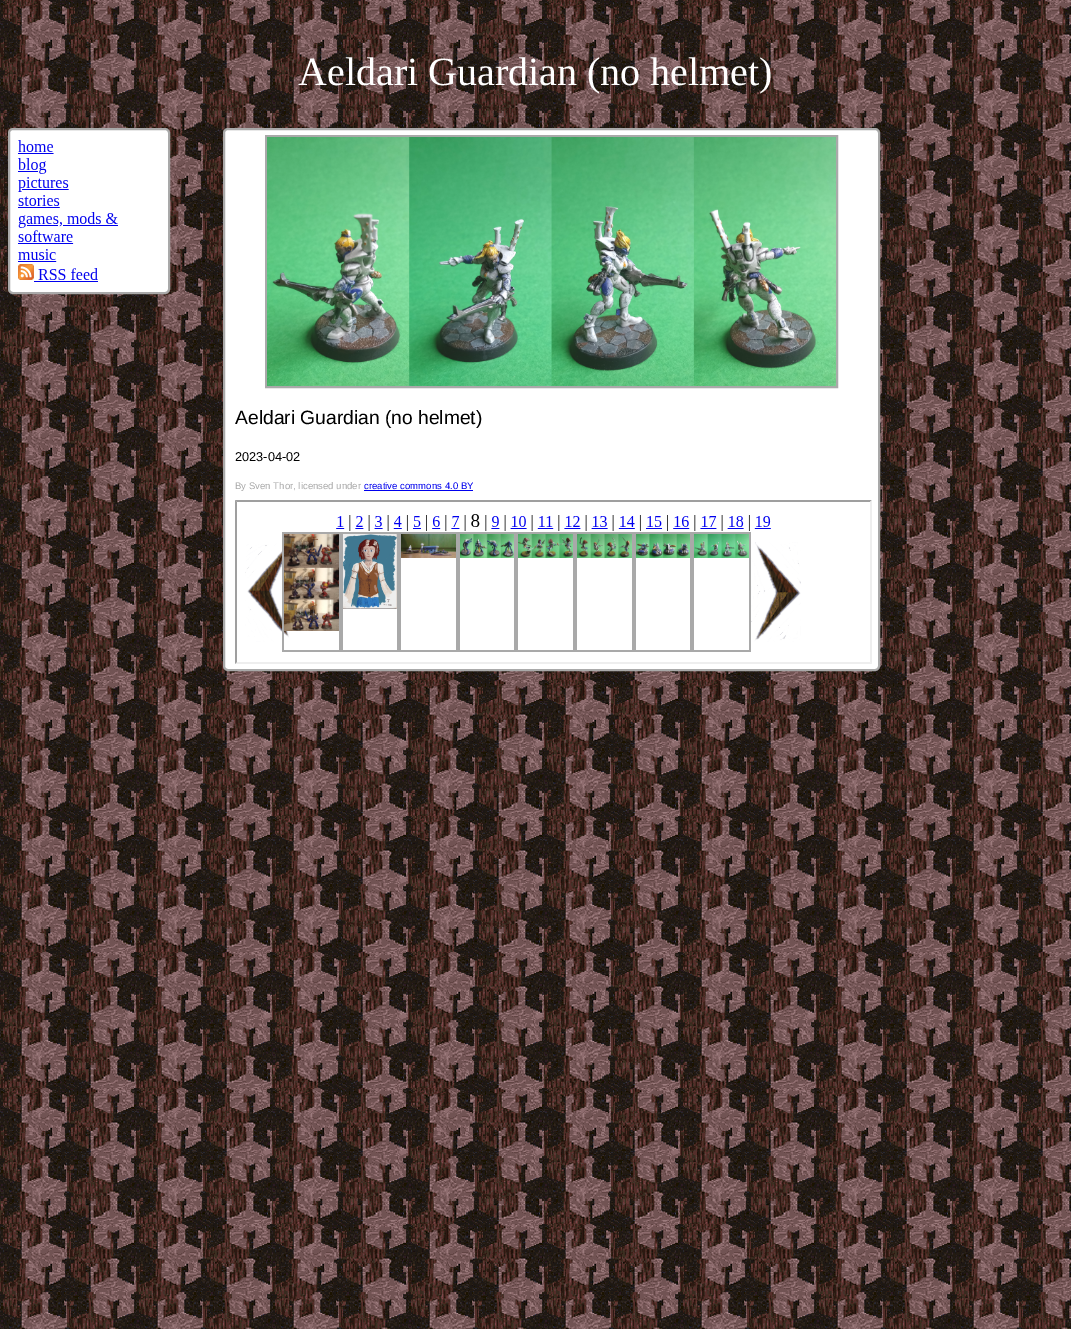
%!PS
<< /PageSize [1071 1329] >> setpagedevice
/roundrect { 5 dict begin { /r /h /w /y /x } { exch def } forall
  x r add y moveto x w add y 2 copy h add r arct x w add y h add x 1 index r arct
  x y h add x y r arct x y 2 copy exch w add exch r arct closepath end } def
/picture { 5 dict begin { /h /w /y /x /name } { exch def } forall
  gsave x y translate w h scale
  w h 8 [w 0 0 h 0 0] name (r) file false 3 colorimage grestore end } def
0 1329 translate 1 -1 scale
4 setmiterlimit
1 setgray
0 0 1071 1329 rectfill
(img1.rgb) 0 0 1071 1329 picture
/LiberationSerif-Regular [40 0 0 -40 0 0] selectfont
298 85 moveto (Aeldari Guardian \(no helmet\)) show
9 129 160 164 4 roundrect gsave fill grestore
0.663 setgray
2 setlinewidth
stroke
(img2.rgb) 18 140 100 142 picture
1 setgray
224 129 655 541 4 roundrect gsave fill grestore
0.663 setgray
stroke
266 136 571 251 rectstroke
(img3.rgb) 267 137 569 249 picture
/LiberationSans-Regular [19.25 0 0 -19.25 0 0] selectfont
0 setgray
235 424 moveto (Aeldari Guardian \(no helmet\)) show
/LiberationSans-Regular [12.75 0 0 -12.75 0 0] selectfont
235 461 moveto (2023-04-02) show
/LiberationSans-Regular [9.6 0 0 -9.6 0 0] selectfont
0.663 setgray
235 489 moveto (By Sven Thor, licensed under) show
0 0 0.933 setrgbcolor
364 489 moveto (creative commons 4.0 BY) show
364 490 109 1 rectfill
0.624 setgray
newpath 235 500 moveto 872 500 lineto 870 502 lineto 237 502 lineto closepath fill
0.933 setgray
newpath 872 500 moveto 872 664 lineto 870 662 lineto 870 502 lineto closepath fill
newpath 872 664 moveto 235 664 lineto 237 662 lineto 870 662 lineto closepath fill
0.624 setgray
newpath 235 664 moveto 235 500 lineto 237 502 lineto 237 662 lineto closepath fill
(img4.rgb) 245 514 556 138 picture
showpage
